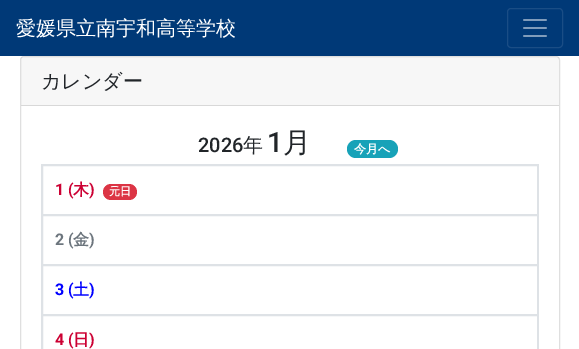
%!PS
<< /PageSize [579 349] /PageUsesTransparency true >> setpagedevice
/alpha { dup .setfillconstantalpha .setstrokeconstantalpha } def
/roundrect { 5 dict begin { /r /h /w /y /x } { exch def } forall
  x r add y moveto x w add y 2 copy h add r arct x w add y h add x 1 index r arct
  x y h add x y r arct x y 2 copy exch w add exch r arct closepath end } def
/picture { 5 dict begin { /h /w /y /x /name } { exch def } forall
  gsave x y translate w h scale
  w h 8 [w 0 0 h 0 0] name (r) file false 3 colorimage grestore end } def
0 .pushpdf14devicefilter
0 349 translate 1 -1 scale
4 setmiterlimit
1 setgray
0 0 579 349 rectfill
0 0.224 0.467 setrgbcolor
0 0 579 56 rectfill
/WenQuanYiZenHei-Medium [20 0 0 -20 0 0] selectfont
1 setgray
16 35 moveto (愛媛県立南宇和高等学校) show
0.102 0.302 0.522 setrgbcolor
507.5 8.5 55 39 3.5 roundrect stroke
(img1.rgb) 523 19 24 18 picture
0.875 setgray
20.5 56.5 539 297 3.5 roundrect stroke
0.03 alpha
0 setgray
21 57 538 48 rectfill
1 alpha
0.847 setgray
21 105 538 1 rectfill
0.129 0.145 0.161 setrgbcolor
41 88 moveto (カレンダー) show
/Roboto-Medium [20 0 0 -20 0 0] selectfont
198 152 moveto (2026) show
/WenQuanYiZenHei-Medium [20 0 0 -20 0 0] selectfont
243 152 moveto (年) show
/Roboto-Medium [28 0 0 -28 0 0] selectfont
267 152 moveto (1) show
/WenQuanYiZenHei-Medium [28 0 0 -28 0 0] selectfont
283 152 moveto (月) show
0.09 0.635 0.722 setrgbcolor
347 140 51 18 9 roundrect fill
/WenQuanYiZenHei-Bold [12 0 0 -12 0 0] selectfont
1 setgray
354 153 moveto (今月へ) show
0.871 0.886 0.902 setrgbcolor
41 164 498 1 rectfill
538 164 1 185 rectfill
41 164 1 185 rectfill
42.5 165.5 495 49 rectstroke
/Roboto-Bold [16 0 0 -16 0 0] selectfont
0.8 0 0.2 setrgbcolor
55 195 moveto (1 \() show
/WenQuanYiZenHei-Bold [16 0 0 -16 0 0] selectfont
73 195 moveto (木) show
/Roboto-Bold [16 0 0 -16 0 0] selectfont
89 195 moveto (\)) show
0.863 0.208 0.271 setrgbcolor
103 184 34 16 8 roundrect fill
/WenQuanYiZenHei-Bold [11 0 0 -11 0 0] selectfont
1 setgray
109 195 moveto (元日) show
0.871 0.886 0.902 setrgbcolor
42.5 215.5 495 49 rectstroke
/Roboto-Bold [16 0 0 -16 0 0] selectfont
0.424 0.459 0.49 setrgbcolor
55 245 moveto (2 \() show
/WenQuanYiZenHei-Bold [16 0 0 -16 0 0] selectfont
73 245 moveto (金) show
/Roboto-Bold [16 0 0 -16 0 0] selectfont
89 245 moveto (\)) show
0.871 0.886 0.902 setrgbcolor
42.5 265.5 495 49 rectstroke
0 0 1 setrgbcolor
55 295 moveto (3 \() show
/WenQuanYiZenHei-Bold [16 0 0 -16 0 0] selectfont
73 295 moveto (土) show
/Roboto-Bold [16 0 0 -16 0 0] selectfont
89 295 moveto (\)) show
0.871 0.886 0.902 setrgbcolor
42.5 315.5 495 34 rectstroke
0.8 0 0.2 setrgbcolor
55 345 moveto (4 \() show
/WenQuanYiZenHei-Bold [16 0 0 -16 0 0] selectfont
73 345 moveto (日) show
/Roboto-Bold [16 0 0 -16 0 0] selectfont
89 345 moveto (\)) show
.poppdf14devicefilter showpage
